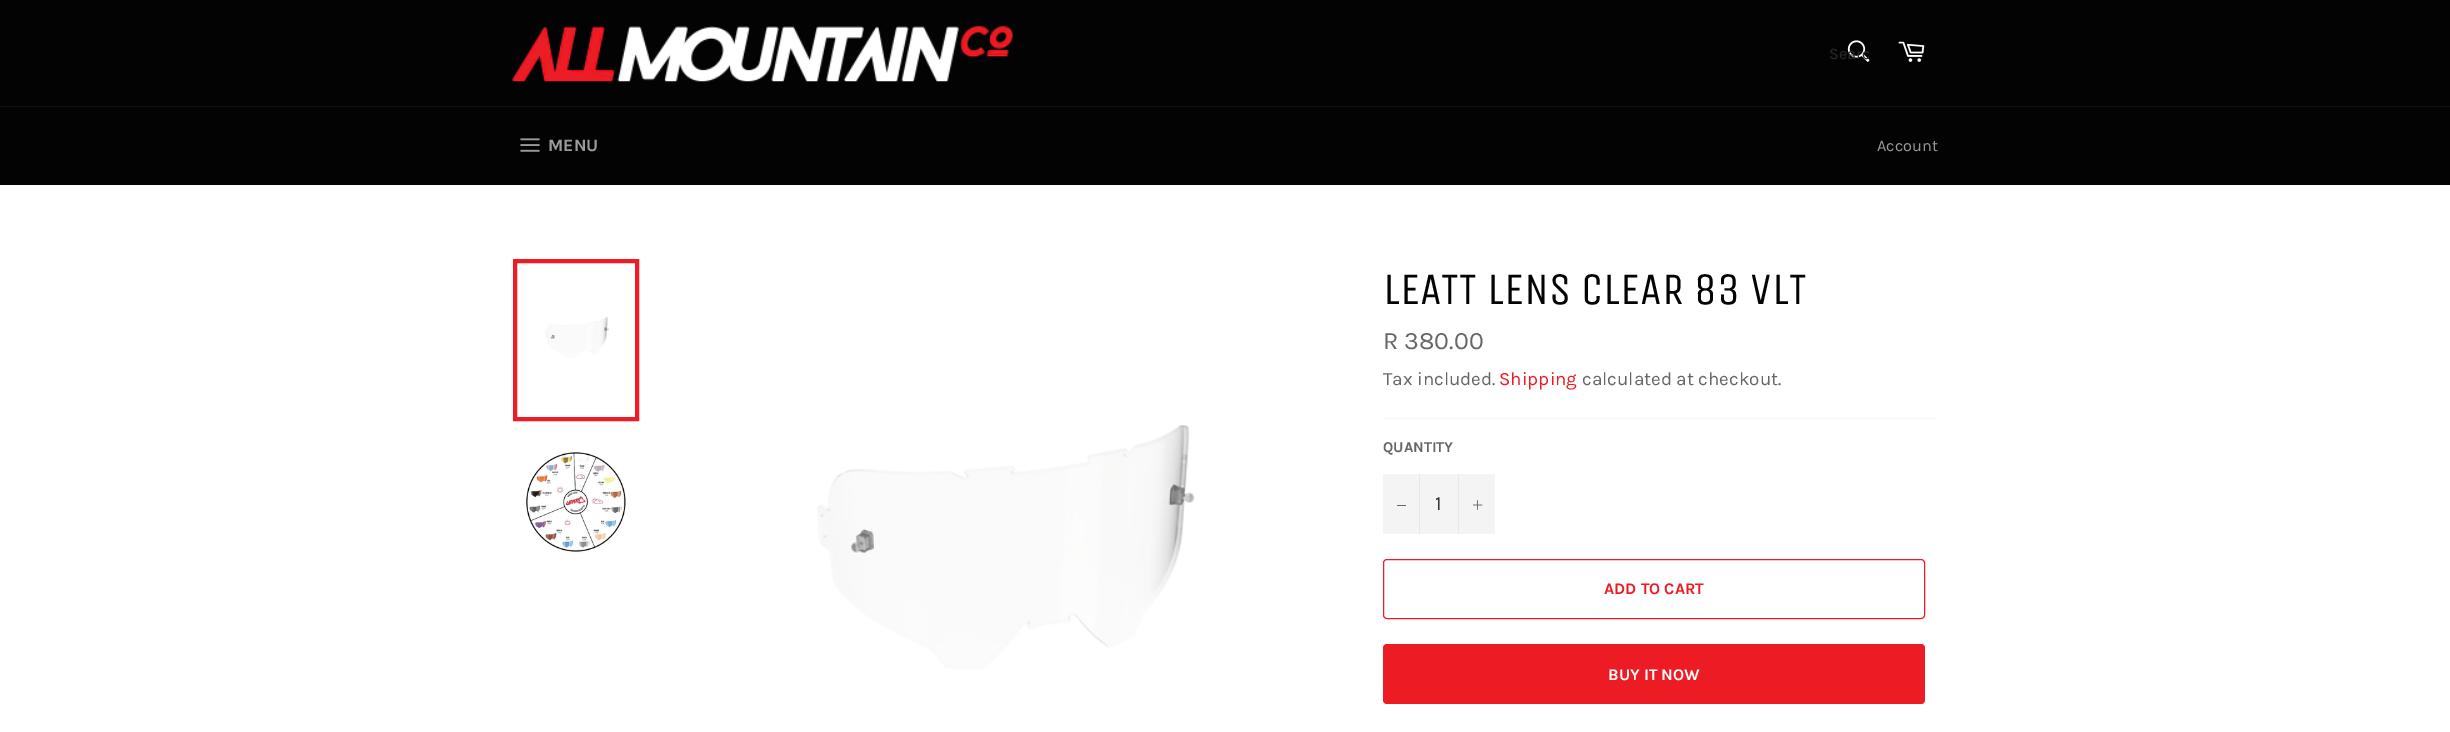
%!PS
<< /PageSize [2450 732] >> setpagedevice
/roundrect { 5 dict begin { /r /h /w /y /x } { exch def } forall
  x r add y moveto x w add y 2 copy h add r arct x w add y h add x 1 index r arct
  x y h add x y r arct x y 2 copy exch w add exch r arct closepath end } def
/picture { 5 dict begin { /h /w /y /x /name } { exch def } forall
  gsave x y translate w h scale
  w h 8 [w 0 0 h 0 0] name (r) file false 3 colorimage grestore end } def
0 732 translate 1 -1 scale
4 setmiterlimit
0.012 setgray
0 0 2450 732 rectfill
(img1.rgb) 512 26 501 56 picture
(img2.rgb) 1847 40 23 22 picture
gsave
1829 44 40 19 rectclip
/Karla-Regular [16.25 0 0 -16.25 0 0] selectfont
0.165 setgray
1829 59 moveto (Searc) show
grestore
(img3.rgb) 1898 41 27 21 picture
0.063 setgray
0 106 2450 1 rectfill
(img4.rgb) 520 138 20 14 picture
/Karla-Bold [17.5 0 0 -17.5 0 0] selectfont
0.604 setgray
548 151 moveto (MENU) show
/Karla-Regular [16.25 0 0 -16.25 0 0] selectfont
1877 151 moveto (Account) show
1 setgray
0 185 2450 547 rectfill
(img5.rgb) 545 317 64 41 picture
0.929 0.11 0.141 setrgbcolor
4 setlinewidth
515 261 122 158 rectstroke
(img6.rgb) 526 452 100 101 picture
(img7.rgb) 817 425 378 245 picture
/UnicaOne-Regular [45 0 0 -45 0 0] selectfont
0.012 setgray
1383 304 moveto (LEATT LENS CLEAR 83 VLT) show
/Karla-Regular [25 0 0 -25 0 0] selectfont
0.4 setgray
1383 349 moveto (R 380.00) show
/Karla-Regular [18.75 0 0 -18.75 0 0] selectfont
1383 385 moveto (Tax included.) show
0.929 0.11 0.141 setrgbcolor
1499 385 moveto (Shipping) show
0.4 setgray
1582 385 moveto (calculated at checkout.) show
0.969 setgray
1383 418 555 1 rectfill
/Karla-Bold [15 0 0 -15 0 0] selectfont
0.4 setgray
1383 452 moveto (QUANTITY) show
0.957 setgray
1383 474 112 60 rectfill
0.906 setgray
1419 474 1 60 rectfill
0.4 setgray
1397 505 9 1 rectfill
/Karla-Regular [20 0 0 -20 0 0] selectfont
0.2 setgray
1435 510 moveto (1) show
0.906 setgray
1458 474 1 60 rectfill
(img8.rgb) 1473 500 10 10 picture
0.929 0.11 0.141 setrgbcolor
1 setlinewidth
1383.5 559.5 541 59 3.5 roundrect stroke
/Karla-Bold [16.25 0 0 -16.25 0 0] selectfont
1604 594 moveto (ADD TO CART) show
1383 644 542 60 4 roundrect fill
1 setgray
1608 680 moveto (BUY IT NOW) show
showpage
